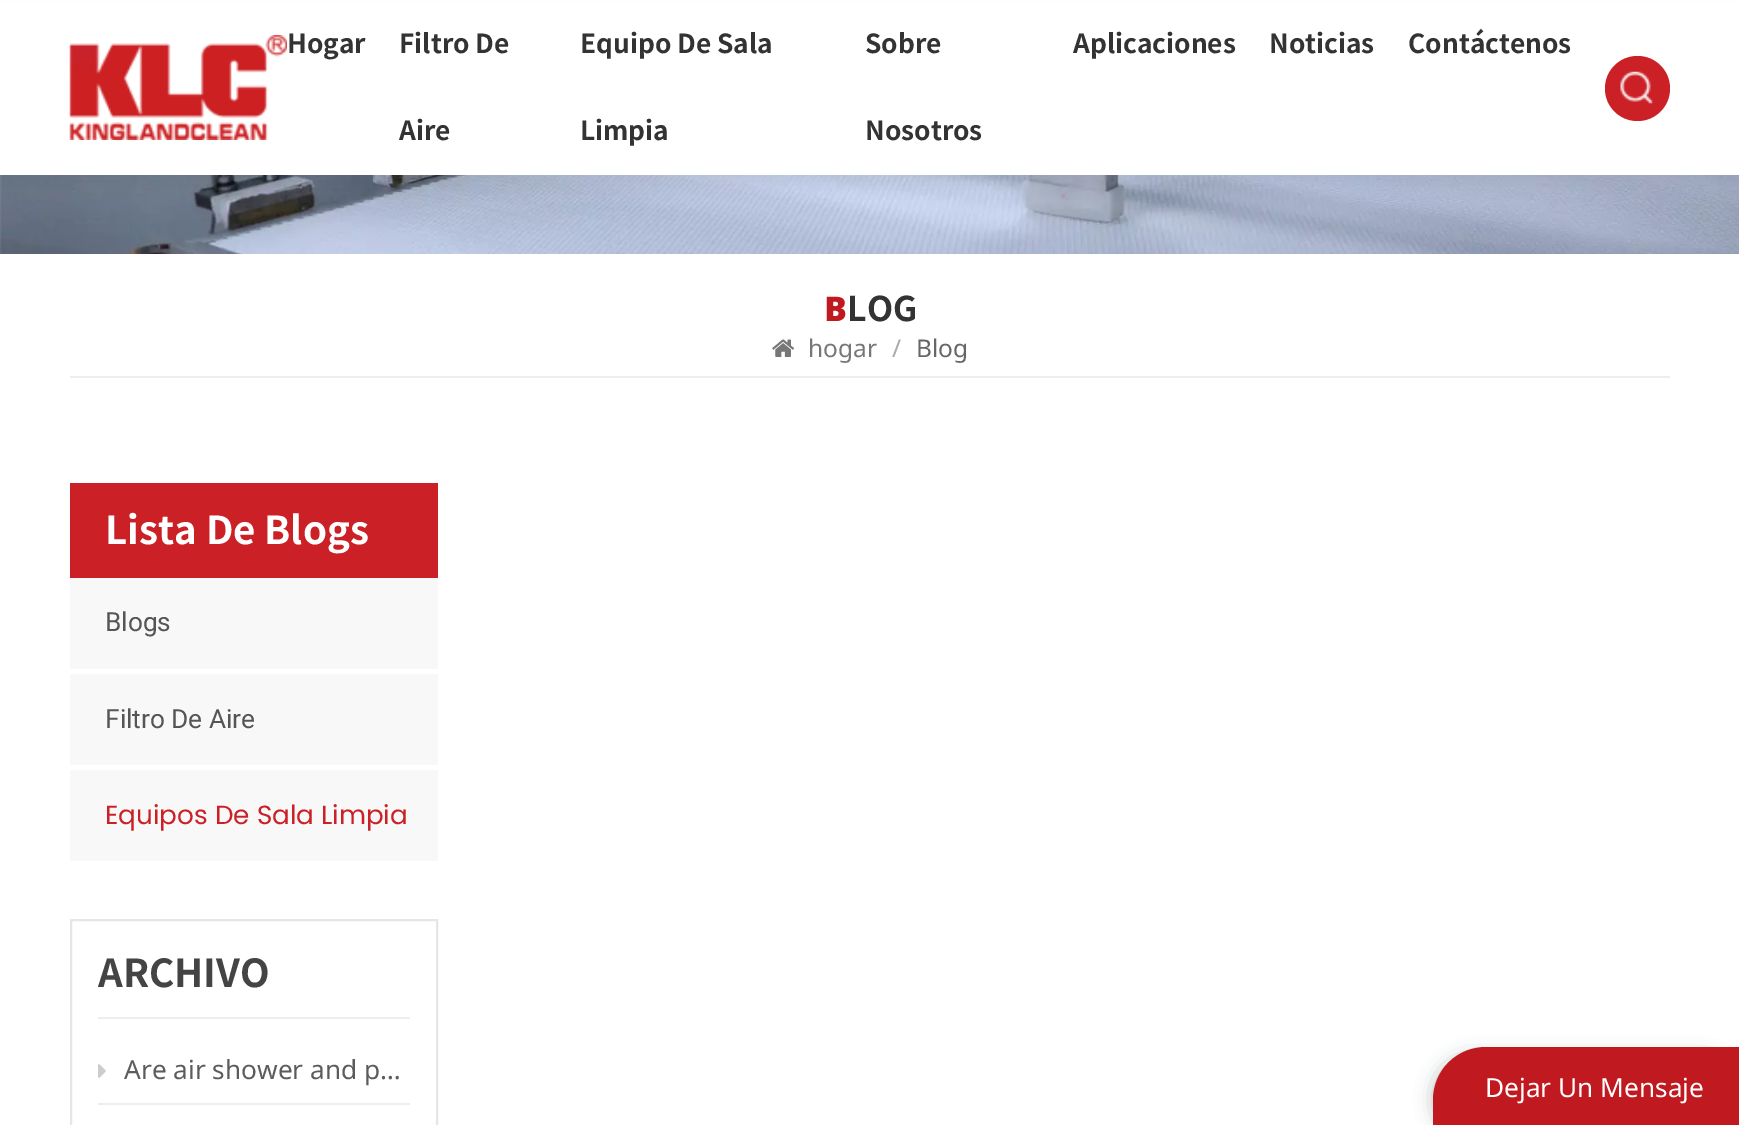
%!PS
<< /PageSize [1739 1125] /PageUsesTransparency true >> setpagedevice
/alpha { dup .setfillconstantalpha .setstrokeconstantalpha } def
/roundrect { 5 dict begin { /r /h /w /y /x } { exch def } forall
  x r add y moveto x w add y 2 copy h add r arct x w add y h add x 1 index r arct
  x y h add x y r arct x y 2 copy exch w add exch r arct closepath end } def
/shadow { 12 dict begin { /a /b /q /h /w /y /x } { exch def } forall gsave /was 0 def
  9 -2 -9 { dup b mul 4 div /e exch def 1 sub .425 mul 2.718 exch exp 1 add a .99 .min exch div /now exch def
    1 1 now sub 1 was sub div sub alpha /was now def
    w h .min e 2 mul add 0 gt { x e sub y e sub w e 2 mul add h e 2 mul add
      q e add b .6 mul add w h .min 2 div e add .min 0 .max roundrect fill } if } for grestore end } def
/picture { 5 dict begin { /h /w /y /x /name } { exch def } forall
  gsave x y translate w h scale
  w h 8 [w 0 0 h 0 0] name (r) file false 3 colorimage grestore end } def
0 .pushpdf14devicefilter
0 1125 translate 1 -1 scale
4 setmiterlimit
1 setgray
0 0 1739 1125 rectfill
(img3.rgb) 0 175 1739 79 picture
0 setgray
0 9 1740 175 0 9 0.05 shadow
1 setgray
0 1 1739 174 rectfill
(img1.rgb) 69 35 218 105 picture
/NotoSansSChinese-Bold [26.25 0 0 -26.25 0 0] selectfont
0.2 setgray
287 53 moveto (Hogar) show
399 53 moveto (Filtro De) show
399 140 moveto (Aire) show
580 53 moveto (Equipo De Sala) show
580 140 moveto (Limpia) show
865 53 moveto (Sobre) show
865 140 moveto (Nosotros) show
1073 53 moveto (Aplicaciones) show
1269 53 moveto (Noticias) show
1408 53 moveto (Contáctenos) show
0.792 0.125 0.149 setrgbcolor
newpath 1637.5 88.5 32.5 0 360 arc closepath fill
(img2.rgb) 1620 71 33 33 picture
/NotoSans-Black [34 0 0 -34 0 0] selectfont
0.757 0.098 0.125 setrgbcolor
824 321 moveto (B) show
/NotoSansSChinese-Bold [34 0 0 -34 0 0] selectfont
0.2 setgray
847 321 moveto (LOG) show
0.933 setgray
70 376 1600 2 rectfill
(img4.rgb) 772 339 23 18 picture
/NotoSans-Regular [24.5 0 0 -24.5 0 0] selectfont
0.467 setgray
808 357 moveto (hogar) show
0.667 setgray
892 357 moveto (/) show
0.4 setgray
916 357 moveto (Blog) show
0.792 0.125 0.149 setrgbcolor
70 483 368 95 rectfill
/NotoSansSChinese-Bold [38.5 0 0 -38.5 0 0] selectfont
1 setgray
105 544 moveto (Lista De Blogs) show
0.973 setgray
70 578 368 91 rectfill
/Roboto-Regular [26.25 0 0 -26.25 0 0] selectfont
0.333 setgray
105 631 moveto (Blogs) show
0.973 setgray
70 674 368 91 rectfill
0.333 setgray
105 728 moveto (Filtro De Aire) show
0.973 setgray
70 770 368 91 rectfill
/Poppins-Regular [26.25 0 0 -26.25 0 0] selectfont
0.792 0.125 0.149 setrgbcolor
105 824 moveto (Equipos De Sala Limpia) show
0.902 setgray
2 setlinewidth
71 920 366 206 rectstroke
0.933 setgray
98 1017 312 2 rectfill
/NotoSansSChinese-Bold [38.5 0 0 -38.5 0 0] selectfont
0.267 setgray
98 987 moveto (ARCHIVO) show
0.933 setgray
98 1103 312 2 rectfill
(img5.rgb) 98 1064 8 14 picture
/NotoSans-Regular [26.25 0 0 -26.25 0 0] selectfont
0.361 setgray
124 1079 moveto (Are air shower and p…) show
0.137 0.196 0.22 setrgbcolor
1433 1055 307 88 53 9 0.3 shadow
0.757 0.098 0.125 setrgbcolor
newpath 1486 1047 moveto 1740 1047 lineto 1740 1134 lineto 1433 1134 lineto 1433 1100 lineto 1433 1070.5 1456.5 1047 1486 1047 curveto closepath fill
1 setgray
1485 1097 moveto (Dejar Un Mensaje) show
.poppdf14devicefilter showpage
